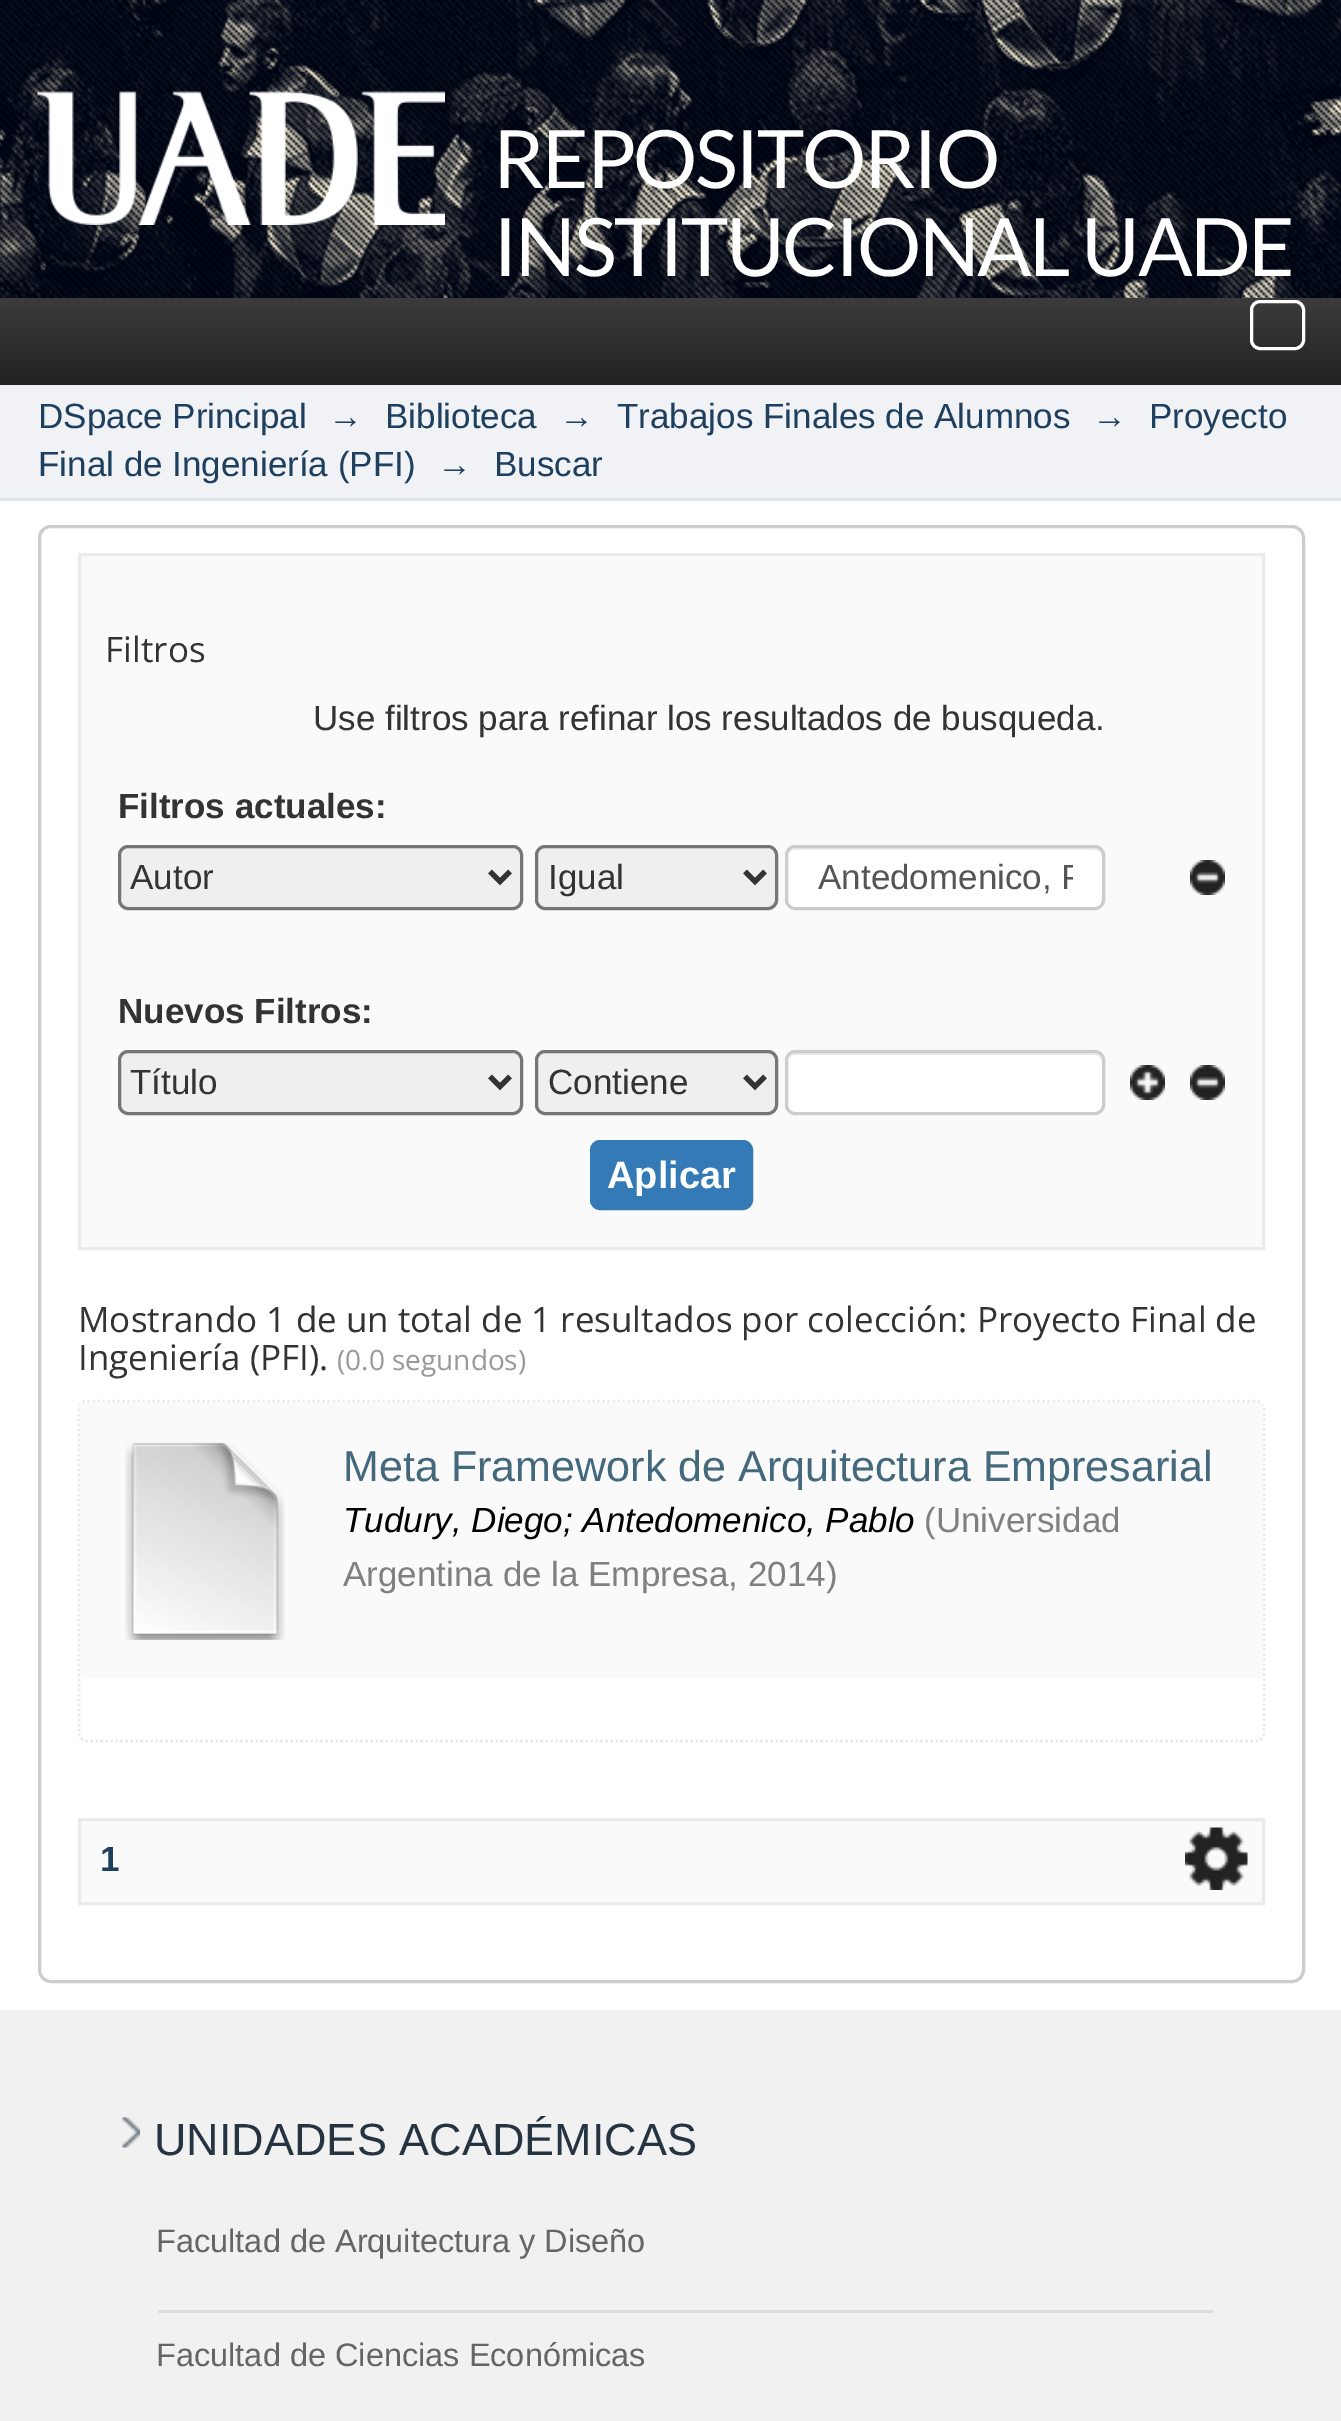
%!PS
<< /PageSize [1341 2421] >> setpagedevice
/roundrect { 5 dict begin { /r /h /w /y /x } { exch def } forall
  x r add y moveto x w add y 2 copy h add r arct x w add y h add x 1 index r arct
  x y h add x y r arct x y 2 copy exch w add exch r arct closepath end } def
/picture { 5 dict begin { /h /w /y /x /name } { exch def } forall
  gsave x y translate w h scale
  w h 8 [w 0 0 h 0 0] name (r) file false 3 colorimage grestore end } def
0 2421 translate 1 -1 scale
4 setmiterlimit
1 setgray
0 0 1341 2421 rectfill
(img1.rgb) 0 0 1341 298 picture
(img2.rgb) 0 0 1341 298 picture
(img3.rgb) 37 91 408 134 picture
/Lato-Regular [80.5 0 0 -80.5 0 0] selectfont
493 188 moveto -2.5 0 (REPOSITORIO) ashow
493 276 moveto -2.5 0 (INSTITUCIONAL UADE) ashow
gsave newpath 0 298 moveto 1341 298 lineto 1341 385 lineto 0 385 lineto closepath clip newpath
<< /ShadingType 2 /ColorSpace /DeviceRGB /Coords [671 297 671 385] /Extend [true true] /Function << /FunctionType 2 /Domain [0 1] /C0 [0.235 0.235 0.235] /C1 [0.133 0.133 0.133] /N 1 >> >> shfill grestore
3 setlinewidth
1251.5 301.5 52 47 8.5 roundrect stroke
0.941 0.949 0.961 setrgbcolor
0 385 1341 113 rectfill
0.847 0.91 0.922 setrgbcolor
0 498 1341 3 rectfill
/LiberationSans-Regular [35 0 0 -35 0 0] selectfont
0.122 0.247 0.369 setrgbcolor
38 428 moveto (DSpace Principal) show
328 428 moveto (→) show
385 428 moveto (Biblioteca) show
559 428 moveto (→) show
617 428 moveto (Trabajos Finales de Alumnos) show
1092 428 moveto (→) show
1149 428 moveto (Proyecto) show
38 476 moveto (Final de Ingeniería \(PFI\)) show
437 476 moveto (→) show
494 476 moveto (Buscar) show
0.8 setgray
39.5 526.5 1264 1455 11.5 roundrect stroke
0.98 setgray
newpath 79.5 554.5 moveto 1263.5 554.5 lineto 1263.5 1248.5 lineto 79.5 1248.5 lineto closepath gsave fill grestore
0.922 setgray
stroke
/OpenSans-Regular [35 0 0 -35 0 0] selectfont
0.2 setgray
105 662 moveto (Filtros) show
/LiberationSans-Regular [35 0 0 -35 0 0] selectfont
313 730 moveto (Use filtros para refinar los resultados de busqueda.) show
/LiberationSans-Bold [35 0 0 -35 0 0] selectfont
118 818 moveto (Filtros actuales:) show
0.937 setgray
119.5 846.5 402 62 8.5 roundrect gsave fill grestore
0.463 setgray
stroke
0.2 setgray
5 setlinewidth
newpath 490 871.5 moveto 500 881.5 lineto 510 871.5 lineto stroke
/LiberationSans-Regular [35 0 0 -35 0 0] selectfont
130 889 moveto (Autor) show
0.937 setgray
536.5 846.5 240 62 8.5 roundrect gsave fill grestore
0.463 setgray
3 setlinewidth
stroke
0.2 setgray
5 setlinewidth
newpath 745 871.5 moveto 755 881.5 lineto 765 871.5 lineto stroke
548 889 moveto (Igual) show
1 setgray
785 845 320 65 10 roundrect fill
0.925 setgray
newpath 795 850 moveto 1095 850 lineto 1099 850 1102 853 1102 858 curveto 1102 904 lineto 1103 903 1103 902 1103 900 curveto 1103 856 lineto 1103 852 1099 848 1095 848 curveto 796 848 lineto 792 848 788 852 788 856 curveto 788 858 lineto 788 853 791 850 795 850 curveto closepath fill
0.8 setgray
3 setlinewidth
786.5 846.5 317 62 8.5 roundrect stroke
gsave
818 858 255 40 rectclip
0.333 setgray
818 889 moveto (Antedomenico, P) show
grestore
(img4.rgb) 1190 860 35 35 picture
/LiberationSans-Bold [35 0 0 -35 0 0] selectfont
0.2 setgray
118 1023 moveto (Nuevos Filtros:) show
0.937 setgray
119.5 1051.5 402 62 8.5 roundrect gsave fill grestore
0.463 setgray
stroke
0.2 setgray
5 setlinewidth
newpath 490 1076.5 moveto 500 1086.5 lineto 510 1076.5 lineto stroke
/LiberationSans-Regular [35 0 0 -35 0 0] selectfont
130 1094 moveto (Título) show
0.937 setgray
536.5 1051.5 240 62 8.5 roundrect gsave fill grestore
0.463 setgray
3 setlinewidth
stroke
0.2 setgray
5 setlinewidth
newpath 745 1076.5 moveto 755 1086.5 lineto 765 1076.5 lineto stroke
548 1094 moveto (Contiene) show
1 setgray
785 1050 320 65 10 roundrect fill
0.925 setgray
newpath 795 1055 moveto 1095 1055 lineto 1099 1055 1102 1058 1102 1062 curveto 1102 1109 lineto 1103 1108 1103 1106 1103 1105 curveto 1103 1061 lineto 1103 1057 1099 1053 1095 1053 curveto 796 1053 lineto 792 1053 788 1057 788 1061 curveto 788 1062 lineto 788 1058 791 1055 795 1055 curveto closepath fill
0.8 setgray
3 setlinewidth
786.5 1051.5 317 62 8.5 roundrect stroke
(img5.rgb) 1130 1065 35 35 picture
(img4.rgb) 1190 1065 35 35 picture
0.2 0.478 0.718 setrgbcolor
591.5 1141.5 160 67 8.5 roundrect gsave fill grestore
stroke
/LiberationSans-Bold [38 0 0 -38 0 0] selectfont
1 setgray
607 1188 moveto (Aplicar) show
/OpenSans-Regular [35 0 0 -35 0 0] selectfont
0.2 setgray
78 1332 moveto (Mostrando 1 de un total de 1 resultados por colección: Proyecto Final de) show
78 1370 moveto (Ingeniería \(PFI\).) show
/OpenSans-Regular [28 0 0 -28 0 0] selectfont
0.6 setgray
337 1370 moveto (\(0.0 segundos\)) show
0.922 setgray
2.5 setlinewidth
[2.5 2.5] 0 setdash
newpath 87.5 1401 moveto 1255 1401 lineto 1260 1401 1264 1405 1264 1410 curveto 1264 1732.5 lineto 1264 1737.5 1260 1741 1255 1741 curveto 87.5 1741 lineto 82.5 1741 79 1737.5 79 1732.5 curveto 79 1410 lineto 79 1405 82.5 1401 87.5 1401 curveto closepath stroke
0.98 setgray
80 1403 1183 275 rectfill
(img6.rgb) 125 1442 160 198 picture
/LiberationSans-Regular [43.1 0 0 -43.1 0 0] selectfont
0.267 0.412 0.49 setrgbcolor
343 1481 moveto (Meta Framework de Arquitectura Empresarial) show
/LiberationSans-Italic [35 0 0 -35 0 0] selectfont
0 setgray
343 1532 moveto (Tudury, Diego; Antedomenico, Pablo) show
/LiberationSans-Regular [35 0 0 -35 0 0] selectfont
0.502 setgray
924 1532 moveto (\(Universidad) show
343 1586 moveto (Argentina de la Empresa, 2014\)) show
0.98 setgray
newpath 79.5 1819.5 moveto 1263.5 1819.5 lineto 1263.5 1903.5 lineto 79.5 1903.5 lineto closepath gsave fill grestore
0.922 setgray
3 setlinewidth
[] 0 setdash
stroke
/LiberationSans-Bold [35 0 0 -35 0 0] selectfont
0.122 0.247 0.369 setrgbcolor
100 1871 moveto (1) show
(img7.rgb) 1185 1827 63 63 picture
0.945 setgray
0 2010 1341 411 rectfill
(img8.rgb) 122 2117 18 31 picture
/LiberationSans-Regular [45 0 0 -45 0 0] selectfont
0.149 0.2 0.251 setrgbcolor
154 2155 moveto (UNIDADES ACADÉMICAS) show
0.863 setgray
158 2310 1055 3 rectfill
/LiberationSans-Regular [32.5 0 0 -32.5 0 0] selectfont
0.396 setgray
156 2252 moveto (Facultad de Arquitectura y Diseño) show
156 2366 moveto (Facultad de Ciencias Económicas) show
showpage
